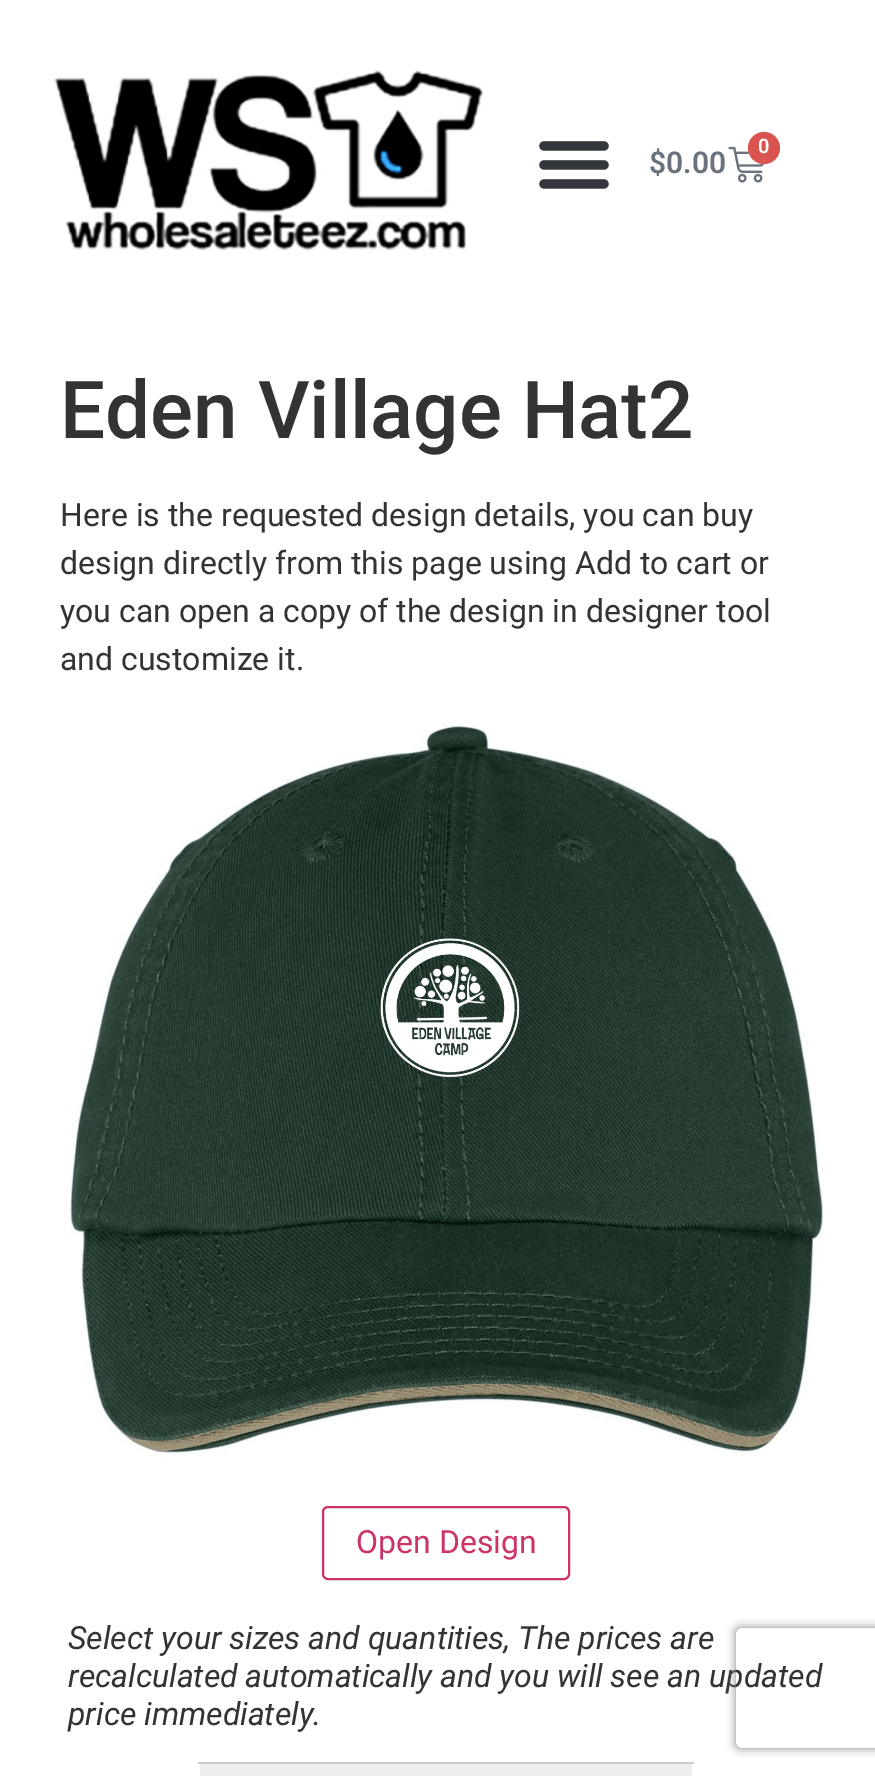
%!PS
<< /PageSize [875 1776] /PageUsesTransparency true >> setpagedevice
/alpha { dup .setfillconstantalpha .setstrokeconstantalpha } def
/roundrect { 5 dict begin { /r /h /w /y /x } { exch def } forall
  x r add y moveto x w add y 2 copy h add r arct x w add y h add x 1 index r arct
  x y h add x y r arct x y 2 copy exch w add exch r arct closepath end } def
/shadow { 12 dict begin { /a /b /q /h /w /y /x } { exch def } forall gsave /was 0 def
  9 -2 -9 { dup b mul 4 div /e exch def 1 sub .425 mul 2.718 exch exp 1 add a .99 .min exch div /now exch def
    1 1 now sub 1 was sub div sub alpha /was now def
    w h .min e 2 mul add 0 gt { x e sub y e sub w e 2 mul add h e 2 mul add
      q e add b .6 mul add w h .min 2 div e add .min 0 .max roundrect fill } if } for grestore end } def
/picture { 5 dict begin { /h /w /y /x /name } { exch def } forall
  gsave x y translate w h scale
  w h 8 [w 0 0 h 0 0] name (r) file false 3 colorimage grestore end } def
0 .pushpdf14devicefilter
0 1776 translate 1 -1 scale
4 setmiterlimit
1 setgray
0 0 875 1776 rectfill
(img1.rgb) 54 70 430 181 picture
(img2.rgb) 539 141 70 48 picture
(img3.rgb) 728 146 37 37 picture
0.851 0.325 0.31 setrgbcolor
newpath 764 148 16 0 360 arc closepath fill
/Roboto-SemiBold [20 0 0 -20 0 0] selectfont
1 setgray
758 153 moveto (0) show
/Roboto-SemiBold [30 0 0 -30 0 0] selectfont
0.412 0.447 0.49 setrgbcolor
649 173 moveto ($0.00) show
/Roboto-Medium [80 0 0 -80 0 0] selectfont
0.2 setgray
60 438 moveto (Eden Village Hat2) show
/Roboto-Regular [32 0 0 -32 0 0] selectfont
60 526 moveto (Here is the requested design details, you can buy) show
60 574 moveto (design directly from this page using Add to cart or) show
60 622 moveto (you can open a copy of the design in designer tool) show
60 670 moveto (and customize it.) show
(img4.rgb) 69 724 755 734 picture
0.8 0.2 0.4 setrgbcolor
2 setlinewidth
323 1507 246 72 5 roundrect stroke
356 1553 moveto (Open Design) show
/Roboto-Italic [32 0 0 -32 0 0] selectfont
0.2 setgray
68 1649 moveto (Select your sizes and quantities, The prices are) show
68 1687 moveto (recalculated automatically and you will see an updated) show
68 1725 moveto (price immediately.) show
0.8 setgray
198 1762 496 2 rectfill
0.933 setgray
200 1764 492 12 rectfill
gsave
newpath 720 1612 moveto 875 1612 lineto 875 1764 lineto 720 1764 lineto closepath 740 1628 moveto 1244 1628 lineto 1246 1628 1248 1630 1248 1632 curveto 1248 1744 lineto 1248 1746 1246 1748 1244 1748 curveto 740 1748 lineto 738 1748 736 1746 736 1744 curveto 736 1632 lineto 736 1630 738 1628 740 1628 curveto closepath eoclip newpath
0.502 setgray
736 1628 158 120 4 5 1 shadow
grestore
.poppdf14devicefilter showpage
